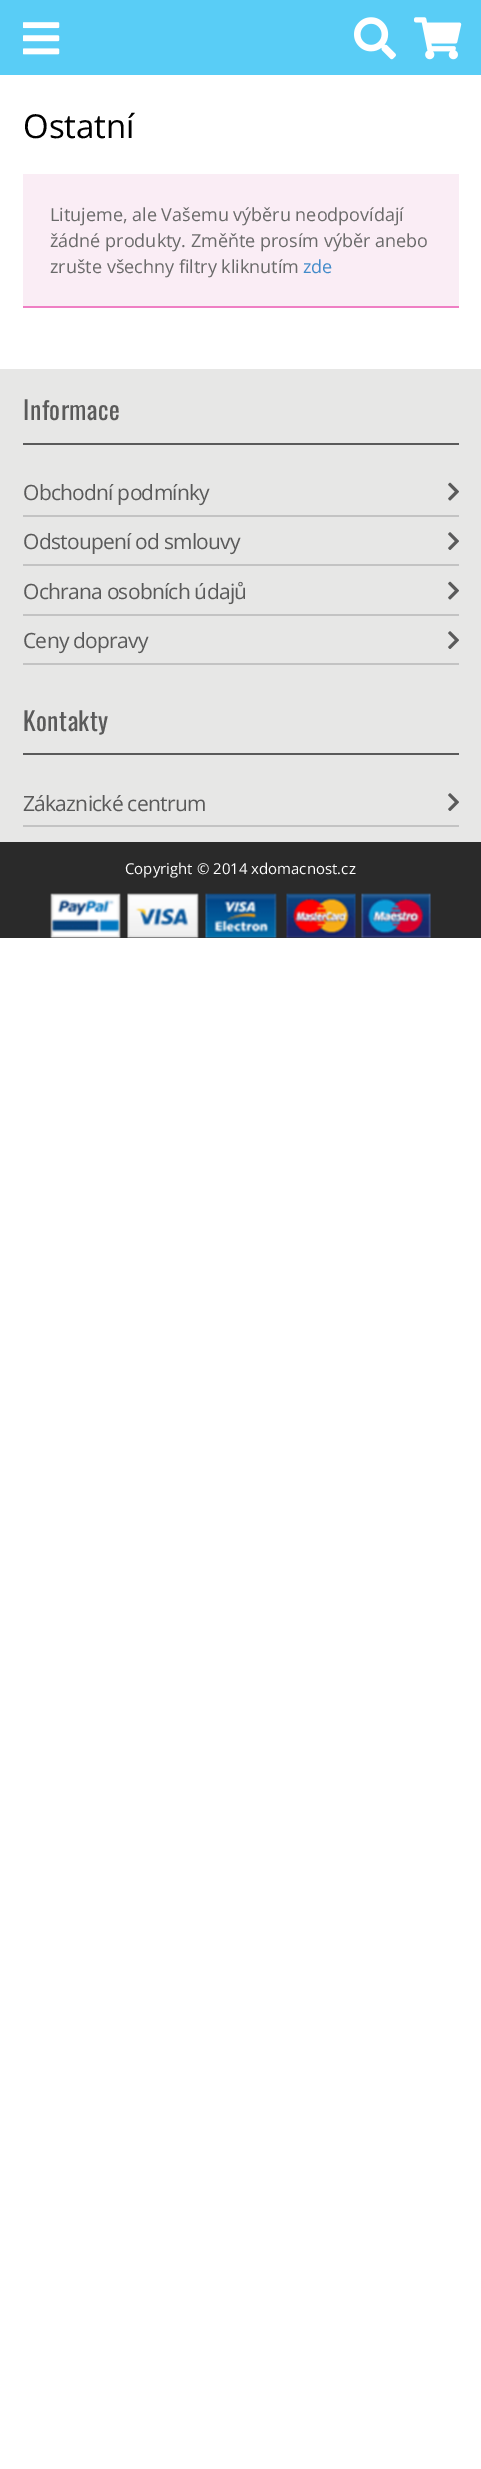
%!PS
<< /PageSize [481 2469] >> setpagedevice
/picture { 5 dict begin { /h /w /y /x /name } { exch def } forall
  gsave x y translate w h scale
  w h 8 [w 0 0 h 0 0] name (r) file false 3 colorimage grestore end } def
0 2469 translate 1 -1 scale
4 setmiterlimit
1 setgray
0 0 481 2469 rectfill
0.349 0.804 0.965 setrgbcolor
0 0 481 75 rectfill
(img1.rgb) 23 22 37 33 picture
(img2.rgb) 354 17 42 43 picture
(img3.rgb) 414 17 48 43 picture
/OpenSans-Regular [33 0 0 -33 0 0] selectfont
0 setgray
23 138 moveto (Ostatní) show
0.98 0.929 0.961 setrgbcolor
23 174 436 132 rectfill
0.937 0.498 0.769 setrgbcolor
23 306 436 2 rectfill
/OpenSans-Regular [18 0 0 -18 0 0] selectfont
0.416 setgray
50 221 moveto (Litujeme, ale Vašemu výběru neodpovídají) show
50 247 moveto (žádné produkty. Změňte prosím výběr anebo) show
50 273 moveto (zrušte všechny filtry kliknutím) show
0.259 0.545 0.792 setrgbcolor
303 273 moveto (zde) show
0.906 0.906 0.902 setrgbcolor
0 369 481 473 rectfill
0.353 setgray
23 443 436 2 rectfill
/Oswald-Regular [25.5 0 0 -25.5 0 0] selectfont
23 420 moveto 0.5 0 (Informace) ashow
0.765 setgray
23 515 436 2 rectfill
/OpenSans-Regular [21 0 0 -21 0 0] selectfont
0.353 setgray
23 500 moveto -0.75 0 (Obchodní podmínky) ashow
(img4.rgb) 448 482 11 19 picture
0.765 setgray
23 564 436 2 rectfill
0.353 setgray
23 549 moveto -0.75 0 (Odstoupení od smlouvy) ashow
(img5.rgb) 448 532 11 18 picture
0.765 setgray
23 614 436 2 rectfill
0.353 setgray
23 599 moveto -0.75 0 (Ochrana osobních údajů) ashow
(img4.rgb) 448 581 11 19 picture
0.765 setgray
23 663 436 2 rectfill
0.353 setgray
23 648 moveto -0.75 0 (Ceny dopravy) ashow
(img5.rgb) 448 631 11 18 picture
23 753 436 2 rectfill
/Oswald-Regular [25.5 0 0 -25.5 0 0] selectfont
23 731 moveto 0.5 0 (Kontakty) ashow
0.765 setgray
23 825 436 2 rectfill
/OpenSans-Regular [21 0 0 -21 0 0] selectfont
0.353 setgray
23 811 moveto -0.75 0 (Zákaznické centrum) ashow
(img5.rgb) 448 793 11 18 picture
0.165 setgray
0 842 481 96 rectfill
/OpenSans-Regular [15 0 0 -15 0 0] selectfont
1 setgray
125 874 moveto (Copyright © 2014 xdomacnost.cz) show
(img6.rgb) 50 893 71 45 picture
(img7.rgb) 127 893 72 45 picture
(img8.rgb) 205 893 72 45 picture
(img9.rgb) 286 893 70 45 picture
(img10.rgb) 361 893 70 45 picture
showpage
